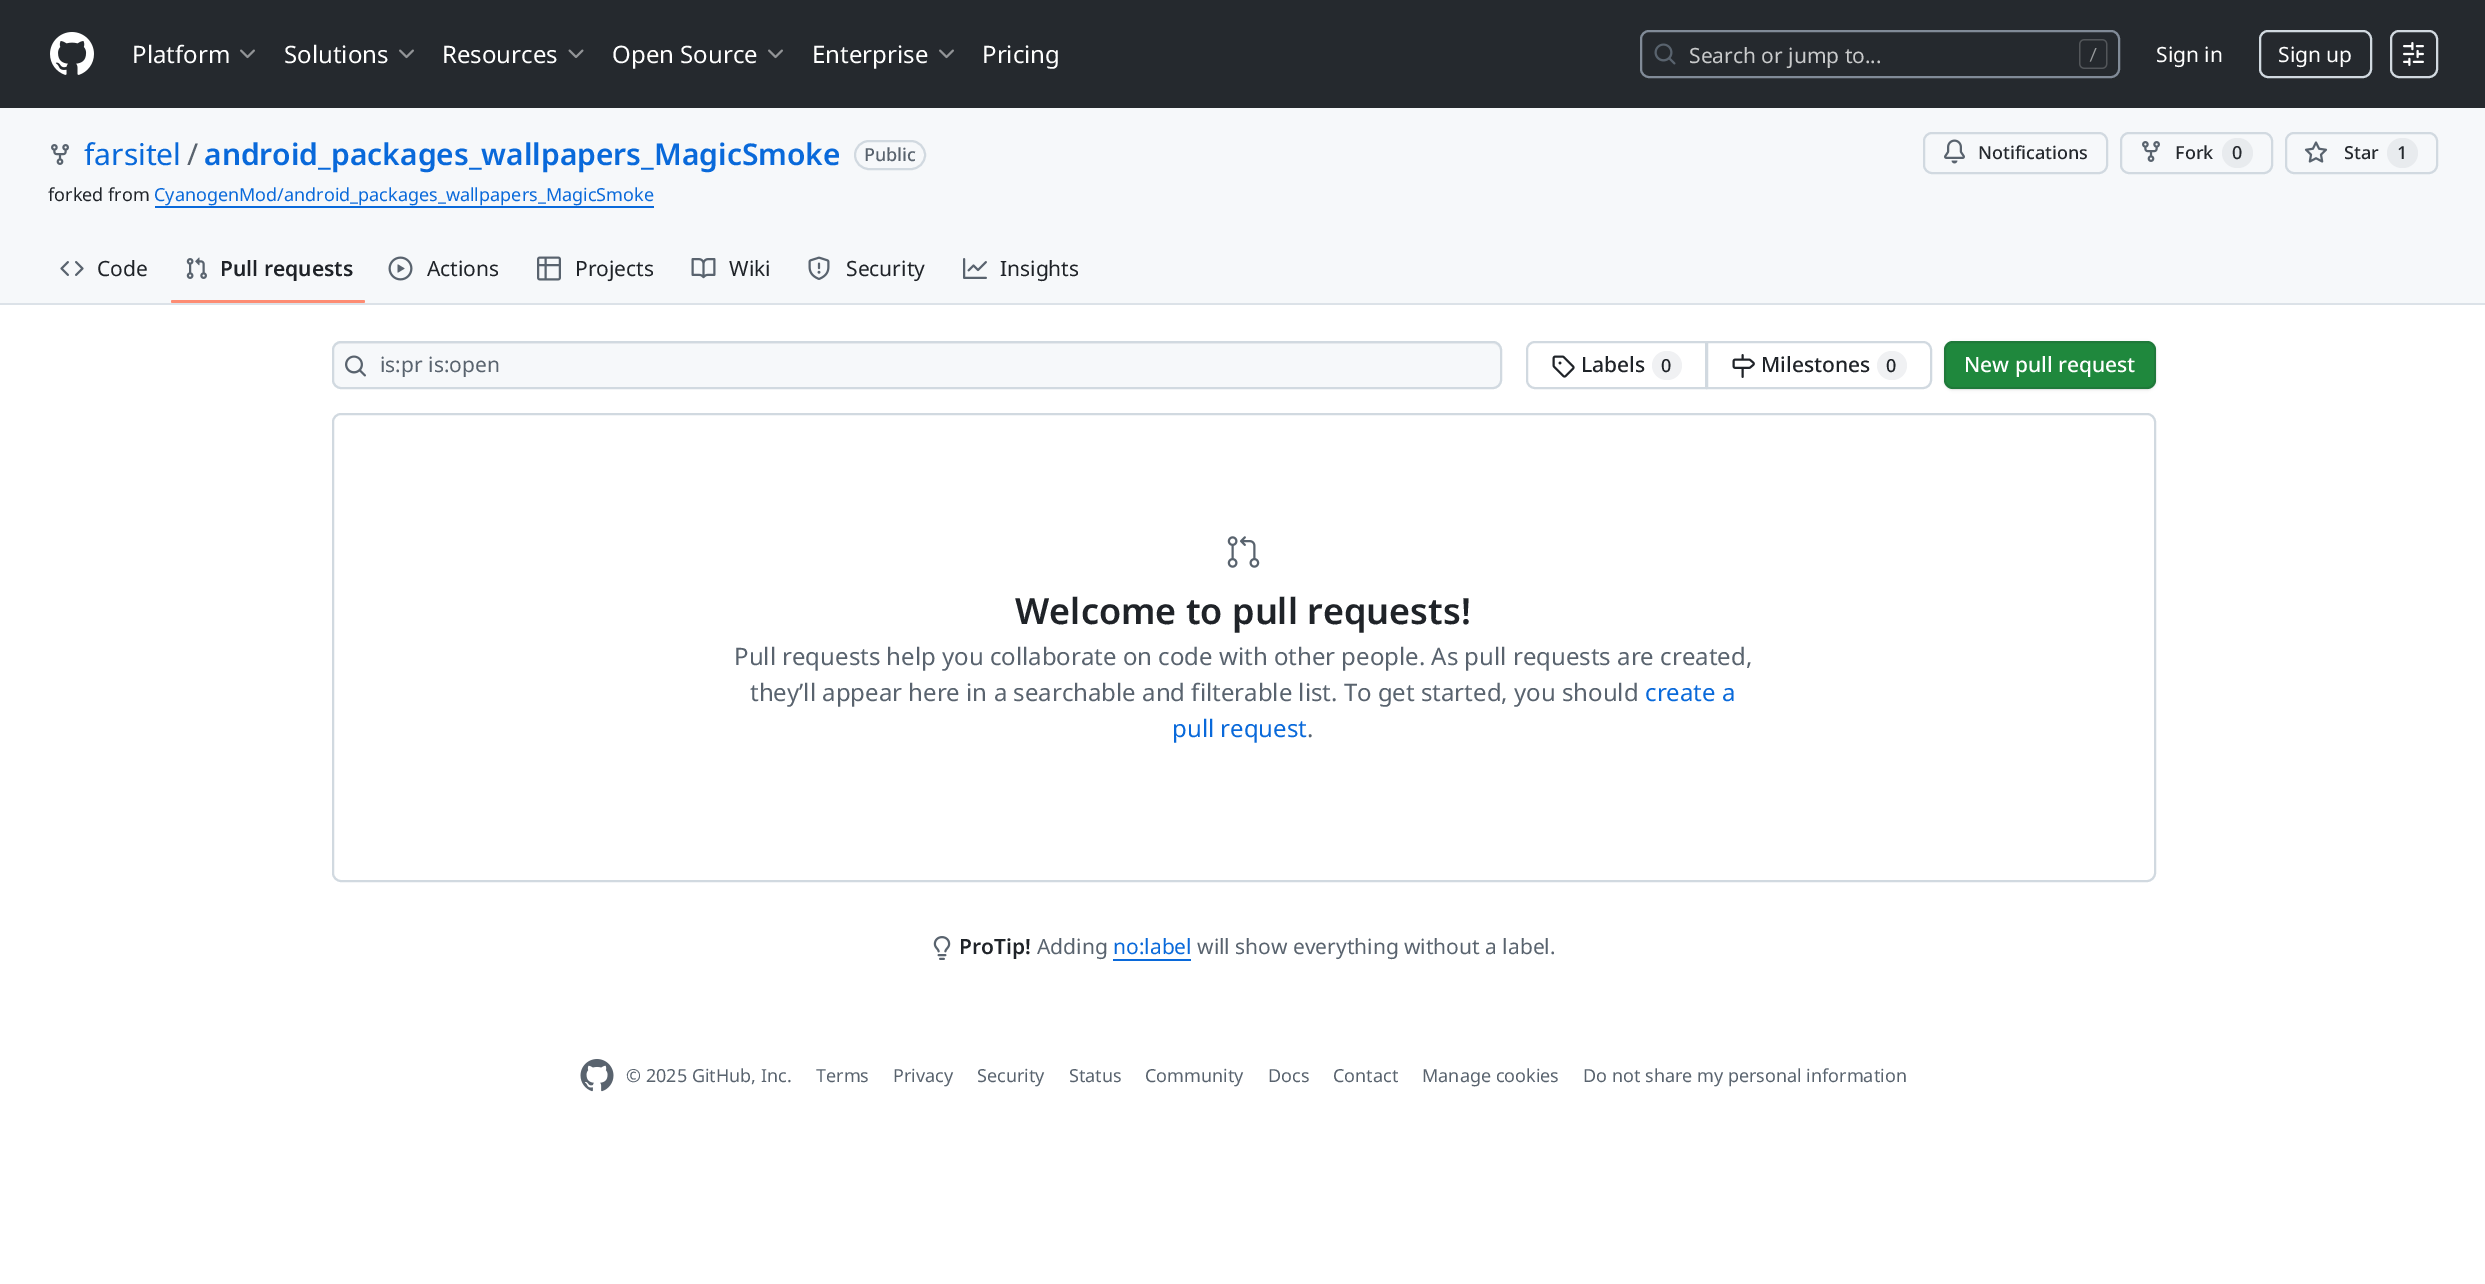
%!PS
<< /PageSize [2485 1284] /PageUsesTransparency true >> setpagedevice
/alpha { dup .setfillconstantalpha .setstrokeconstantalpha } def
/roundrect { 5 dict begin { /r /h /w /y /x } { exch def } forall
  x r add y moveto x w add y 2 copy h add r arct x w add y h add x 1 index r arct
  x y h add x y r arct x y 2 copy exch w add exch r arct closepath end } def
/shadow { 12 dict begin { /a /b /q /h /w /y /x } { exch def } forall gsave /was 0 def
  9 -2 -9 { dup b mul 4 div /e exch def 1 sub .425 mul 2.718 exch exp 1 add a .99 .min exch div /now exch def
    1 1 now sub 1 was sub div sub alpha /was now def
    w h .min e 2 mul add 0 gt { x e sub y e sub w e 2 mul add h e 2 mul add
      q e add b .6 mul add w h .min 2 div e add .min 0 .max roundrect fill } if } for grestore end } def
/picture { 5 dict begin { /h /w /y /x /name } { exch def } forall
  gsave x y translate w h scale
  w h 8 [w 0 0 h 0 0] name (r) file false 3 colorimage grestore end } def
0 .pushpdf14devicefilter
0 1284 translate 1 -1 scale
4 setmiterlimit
1 setgray
0 0 2485 1284 rectfill
0.145 0.161 0.18 setrgbcolor
0 0 2485 108 rectfill
(img1.rgb) 50 32 44 43 picture
/NotoSans-Regular [24 0 0 -24 0 0] selectfont
1 setgray
132 63 moveto (Platform) show
(img2.rgb) 240 49 15 10 picture
284 63 moveto (Solutions) show
(img2.rgb) 399 49 15 10 picture
442 63 moveto (Resources) show
(img3.rgb) 568 49 16 9 picture
612 63 moveto (Open Source) show
(img2.rgb) 768 49 15 10 picture
812 63 moveto (Enterprise) show
(img2.rgb) 939 49 15 10 picture
982 63 moveto (Pricing) show
0.506 0.545 0.596 setrgbcolor
2 setlinewidth
1641 31 478 46 8 roundrect stroke
(img4.rgb) 1654 43 22 22 picture
/NotoSans-Regular [21 0 0 -21 0 0] selectfont
0.788 0.792 0.796 setrgbcolor
1689 63 moveto (Search or jump to...) show
(img5.rgb) 2079 39 29 30 picture
1 setgray
2156 62 moveto (Sign in) show
0.82 0.851 0.878 setrgbcolor
2260 31 111 46 8 roundrect stroke
1 setgray
2278 62 moveto (Sign up) show
0.82 0.851 0.878 setrgbcolor
2391 31 46 46 8 roundrect stroke
(img6.rgb) 2403 42 21 24 picture
0.965 0.973 0.98 setrgbcolor
0 108 2485 195 rectfill
(img7.rgb) 51 144 18 21 picture
/NotoSans-Regular [30 0 0 -30 0 0] selectfont
0.035 0.412 0.855 setrgbcolor
84 165 moveto (farsitel) show
0.349 0.388 0.431 setrgbcolor
187 165 moveto (/) show
/NotoSans-SemiBold [30 0 0 -30 0 0] selectfont
0.035 0.412 0.855 setrgbcolor
204 165 moveto (android_packages_wallpapers_MagicSmoke) show
0.82 0.851 0.878 setrgbcolor
855 141 70 28 14 roundrect stroke
/NotoSans-Medium [18 0 0 -18 0 0] selectfont
0.349 0.388 0.431 setrgbcolor
864 161 moveto (Public) show
/NotoSans-Regular [18 0 0 -18 0 0] selectfont
0.122 0.137 0.157 setrgbcolor
48 201 moveto (forked from) show
0.035 0.412 0.855 setrgbcolor
154 201 moveto (CyanogenMod/android_packages_wallpapers_MagicSmoke) show
155 206 499 2 rectfill
0.82 0.851 0.878 setrgbcolor
1924 133 183 40 8 roundrect stroke
(img8.rgb) 1944 139 21 25 picture
/NotoSans-Medium [18 0 0 -18 0 0] selectfont
0.145 0.161 0.18 setrgbcolor
1978 159 moveto (Notifications) show
0.82 0.851 0.878 setrgbcolor
2121 133 151 40 8 roundrect stroke
(img7.rgb) 2142 141 18 21 picture
0.145 0.161 0.18 setrgbcolor
2175 159 moveto (Fork) show
0.91 0.922 0.933 setrgbcolor
2222 138 31 30 15 roundrect fill
0.145 0.161 0.18 setrgbcolor
2232 159 moveto (0) show
0.82 0.851 0.878 setrgbcolor
2286 133 151 40 8 roundrect stroke
(img9.rgb) 2304 141 24 22 picture
0.145 0.161 0.18 setrgbcolor
2344 159 moveto (Star) show
0.91 0.922 0.933 setrgbcolor
2387 138 31 30 15 roundrect fill
0.145 0.161 0.18 setrgbcolor
2397 159 moveto (1) show
0.863 0.886 0.91 setrgbcolor
0 303 2485 2 rectfill
(img10.rgb) 60 261 24 15 picture
/NotoSans-Regular [21 0 0 -21 0 0] selectfont
0.122 0.137 0.157 setrgbcolor
97 276 moveto (Code) show
(img11.rgb) 186 257 21 22 picture
/NotoSans-SemiBold [21 0 0 -21 0 0] selectfont
220 276 moveto (Pull requests) show
0.992 0.549 0.451 setrgbcolor
171 300 194 3 1.5 roundrect fill
(img12.rgb) 388 256 25 25 picture
/NotoSans-Regular [21 0 0 -21 0 0] selectfont
0.122 0.137 0.157 setrgbcolor
427 276 moveto (Actions) show
(img13.rgb) 537 256 24 25 picture
575 276 moveto (Projects) show
(img14.rgb) 691 258 25 21 picture
729 276 moveto (Wiki) show
(img15.rgb) 808 256 22 24 picture
846 276 moveto (Security) show
(img16.rgb) 963 258 24 21 picture
1000 276 moveto (Insights) show
0.965 0.973 0.98 setrgbcolor
332 341 1170 48 9 roundrect fill
0.929 0.937 0.949 setrgbcolor
newpath 340 344 moveto 1492 344 lineto 1497 344 1500 347 1500 351 curveto 1500 346 1497 342 1492 342 curveto 341 342 lineto 336 342 333 346 333 351 curveto 333 347 336 344 340 344 curveto closepath fill
0.82 0.851 0.878 setrgbcolor
333 342 1168 46 8 roundrect stroke
(img17.rgb) 345 355 21 22 picture
0.349 0.388 0.431 setrgbcolor
380 372 moveto (is:pr is:open) show
0.82 0.851 0.878 setrgbcolor
newpath 1535 342 moveto 1706 342 lineto 1706 388 lineto 1535 388 lineto 1530.5 388 1527 384.5 1527 380 curveto 1527 350 lineto 1527 345.5 1530.5 342 1535 342 curveto closepath stroke
(img18.rgb) 1552 355 23 23 picture
/NotoSans-Medium [21 0 0 -21 0 0] selectfont
0.122 0.137 0.157 setrgbcolor
1581 372 moveto (Labels) show
0.941 0.945 0.953 setrgbcolor
1652 351 30 29 14.5 roundrect fill
/NotoSans-Medium [18 0 0 -18 0 0] selectfont
0.122 0.137 0.157 setrgbcolor
1661 372 moveto (0) show
0.82 0.851 0.878 setrgbcolor
newpath 1707 342 moveto 1923 342 lineto 1927.5 342 1931 345.5 1931 350 curveto 1931 380 lineto 1931 384.5 1927.5 388 1923 388 curveto 1707 388 lineto closepath stroke
(img19.rgb) 1732 354 23 24 picture
/NotoSans-Medium [21 0 0 -21 0 0] selectfont
0.122 0.137 0.157 setrgbcolor
1761 372 moveto (Milestones) show
0.941 0.945 0.953 setrgbcolor
1877 351 30 29 14.5 roundrect fill
/NotoSans-Medium [18 0 0 -18 0 0] selectfont
0.122 0.137 0.157 setrgbcolor
1886 372 moveto (0) show
1944 342 212 48 9 2 0.06 shadow
1944 342 212 48 9 1 0.06 shadow
0.122 0.533 0.239 setrgbcolor
1944 341 212 48 9 roundrect fill
0.15 alpha
0.122 0.137 0.157 setrgbcolor
1945 342 210 46 8 roundrect stroke
/NotoSans-Medium [21 0 0 -21 0 0] selectfont
1 alpha
1 setgray
1964 372 moveto (New pull request) show
0.82 0.851 0.878 setrgbcolor
333 414 1822 467 8 roundrect stroke
(img20.rgb) 1227 536 33 32 picture
/NotoSans-SemiBold [36 0 0 -36 0 0] selectfont
0.122 0.137 0.157 setrgbcolor
1015 624 moveto (Welcome to pull requests!) show
/NotoSans-Regular [24 0 0 -24 0 0] selectfont
0.349 0.388 0.431 setrgbcolor
734 665 moveto (Pull requests help you collaborate on code with other people. As pull requests are created,) show
750 701 moveto (they’ll appear here in a searchable and filterable list. To get started, you should) show
0.035 0.412 0.855 setrgbcolor
1645 701 moveto (create a) show
1172 737 moveto (pull request) show
0.349 0.388 0.431 setrgbcolor
1307 737 moveto (.) show
(img21.rgb) 933 936 18 24 picture
/NotoSans-SemiBold [21 0 0 -21 0 0] selectfont
0.122 0.137 0.157 setrgbcolor
959 954 moveto (ProTip!) show
/NotoSans-Regular [21 0 0 -21 0 0] selectfont
0.349 0.388 0.431 setrgbcolor
1037 954 moveto (Adding) show
0.035 0.412 0.855 setrgbcolor
1113 954 moveto (no:label) show
1113 959 78 2 rectfill
0.349 0.388 0.431 setrgbcolor
1197 954 moveto (will show everything without a label.) show
(img22.rgb) 580 1059 34 33 picture
/NotoSans-Regular [18 0 0 -18 0 0] selectfont
626 1082 moveto (© 2025 GitHub, Inc.) show
816 1082 moveto (Terms) show
893 1082 moveto (Privacy) show
977 1082 moveto (Security) show
1069 1082 moveto (Status) show
1145 1082 moveto (Community) show
1268 1082 moveto (Docs) show
1333 1082 moveto (Contact) show
1422 1082 moveto (Manage cookies) show
1583 1082 moveto (Do not share my personal information) show
.poppdf14devicefilter showpage
